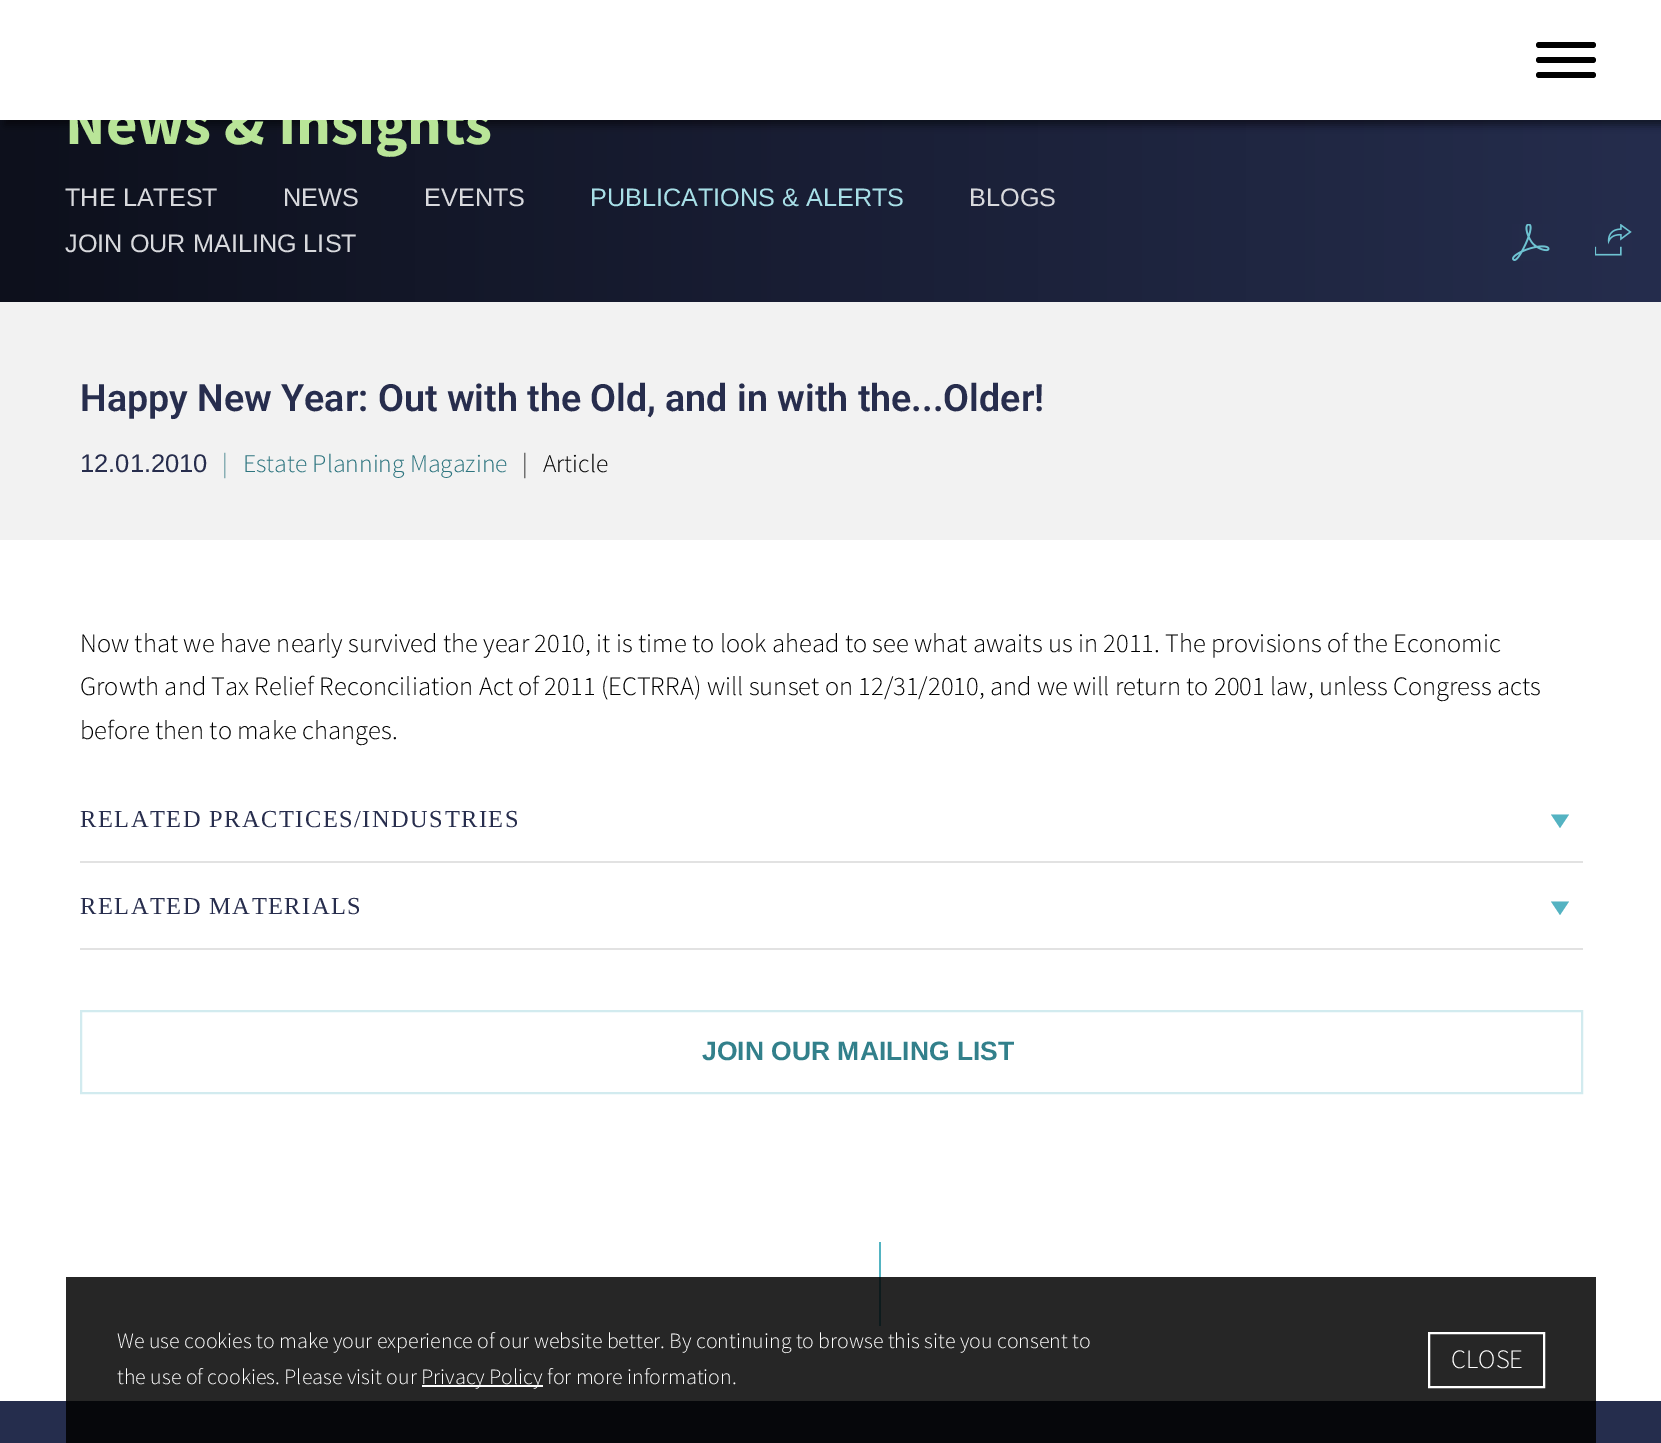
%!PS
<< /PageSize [1661 1443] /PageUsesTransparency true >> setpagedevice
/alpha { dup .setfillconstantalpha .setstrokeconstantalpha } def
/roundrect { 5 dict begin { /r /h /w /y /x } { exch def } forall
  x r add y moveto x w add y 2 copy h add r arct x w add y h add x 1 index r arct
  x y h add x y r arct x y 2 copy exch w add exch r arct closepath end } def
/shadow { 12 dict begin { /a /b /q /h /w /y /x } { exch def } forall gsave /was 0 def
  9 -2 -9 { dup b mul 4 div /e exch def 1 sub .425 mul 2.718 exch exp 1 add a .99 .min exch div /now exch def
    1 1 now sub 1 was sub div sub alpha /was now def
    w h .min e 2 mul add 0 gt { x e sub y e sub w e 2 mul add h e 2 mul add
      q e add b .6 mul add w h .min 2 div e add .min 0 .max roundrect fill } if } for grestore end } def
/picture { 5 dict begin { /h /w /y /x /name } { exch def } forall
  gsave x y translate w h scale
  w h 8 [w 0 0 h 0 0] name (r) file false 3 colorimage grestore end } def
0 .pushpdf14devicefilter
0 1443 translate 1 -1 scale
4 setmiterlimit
1 setgray
0 0 1661 1443 rectfill
gsave newpath 0 120 moveto 1661 120 lineto 1661 302 lineto 0 302 lineto closepath clip newpath
<< /ShadingType 2 /ColorSpace /DeviceRGB /Coords [0 131 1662 131] /Extend [true true] /Function << /FunctionType 2 /Domain [0 1] /C0 [0.051 0.063 0.11] /C1 [0.145 0.176 0.302] /N 1 >> >> shfill grestore
0 setgray
5 5 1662 120 0 4 0.5 shadow
/SourceSansPro-Bold [61 0 0 -61 0 0] selectfont
0.725 0.898 0.596 setrgbcolor
65 144 moveto (News & Insights) show
1 setgray
0 0 1661 120 rectfill
0 setgray
1536 42 60 6 3 roundrect fill
1536 57 60 6 3 roundrect fill
1536 72 60 6 3 roundrect fill
/LiberationSans-Regular [25.25 0 0 -25.25 0 0] selectfont
0.847 0.851 0.867 setrgbcolor
65 206 moveto (THE LATEST) show
283 206 moveto (NEWS) show
424 206 moveto (EVENTS) show
0.659 0.875 0.906 setrgbcolor
590 206 moveto (PUBLICATIONS & ALERTS) show
0.847 0.851 0.867 setrgbcolor
969 206 moveto (BLOGS) show
65 252 moveto (JOIN OUR MAILING LIST) show
(img1.rgb) 1512 224 38 37 picture
(img2.rgb) 1595 224 37 32 picture
0.949 setgray
0 302 1661 238 rectfill
/Roboto-SemiBold [37.6 0 0 -37.6 0 0] selectfont
0.153 0.176 0.302 setrgbcolor
80 411 moveto (Happy New Year: Out with the Old, and in with the...Older!) show
/LiberationSans-Regular [25.5 0 0 -25.5 0 0] selectfont
80 472 moveto (12.01.2010) show
/SourceSansPro-Light [25.5 0 0 -25.5 0 0] selectfont
0.18 0.459 0.498 setrgbcolor
222 472 moveto (|) show
243 472 moveto (Estate Planning Magazine) show
0 setgray
522 472 moveto (|) show
543 472 moveto (Article) show
/SourceSansPro-Light [26.5 0 0 -26.5 0 0] selectfont
80 652 moveto (Now that we have nearly survived the year 2010, it is time to look ahead to see what awaits us in 2011. The provisions of the Economic) show
80 695 moveto (Growth and Tax Relief Reconciliation Act of 2011 \(ECTRRA\) will sunset on 12/31/2010, and we will return to 2001 law, unless Congress acts) show
80 739 moveto (before then to make changes.) show
0.886 setgray
80 861 1503 2 rectfill
/LiberationSerif-Regular [24.4 0 0 -24.4 0 0] selectfont
0.153 0.176 0.302 setrgbcolor
80 827 moveto 1.5 0 (RELATED PRACTICES/INDUSTRIES) ashow
0.329 0.702 0.761 setrgbcolor
newpath 1551 814.5 moveto 1569 814.5 lineto 1560 828 lineto closepath fill
0.886 setgray
80 948 1503 2 rectfill
0.153 0.176 0.302 setrgbcolor
80 914 moveto 1.5 0 (RELATED MATERIALS) ashow
0.329 0.702 0.761 setrgbcolor
newpath 1551 901.5 moveto 1569 901.5 lineto 1560 915 lineto closepath fill
0.824 0.922 0.937 setrgbcolor
2 setlinewidth
81 1011 1501 82 rectstroke
/LiberationSans-Bold [26.5 0 0 -26.5 0 0] selectfont
0.196 0.502 0.545 setrgbcolor
702 1060 moveto (JOIN OUR MAILING LIST) show
0.329 0.706 0.761 setrgbcolor
879 1242 2 84 rectfill
0.145 0.176 0.302 setrgbcolor
0 1401 1661 42 rectfill
0.85 alpha
0 setgray
66 1277 1530 166 rectfill
/SourceSansPro-Light [21.85 0 0 -21.85 0 0] selectfont
1 alpha
1 setgray
117 1348 moveto (We use cookies to make your experience of our website better. By continuing to browse this site you consent to) show
117 1384 moveto (the use of cookies. Please visit our) show
422 1385 121 2 rectfill
421 1384 moveto (Privacy Policy for more information.) show
1429 1333 115 54 rectstroke
/SourceSansPro-Light [26.5 0 0 -26.5 0 0] selectfont
1451 1368 moveto (CLOSE) show
.poppdf14devicefilter showpage
